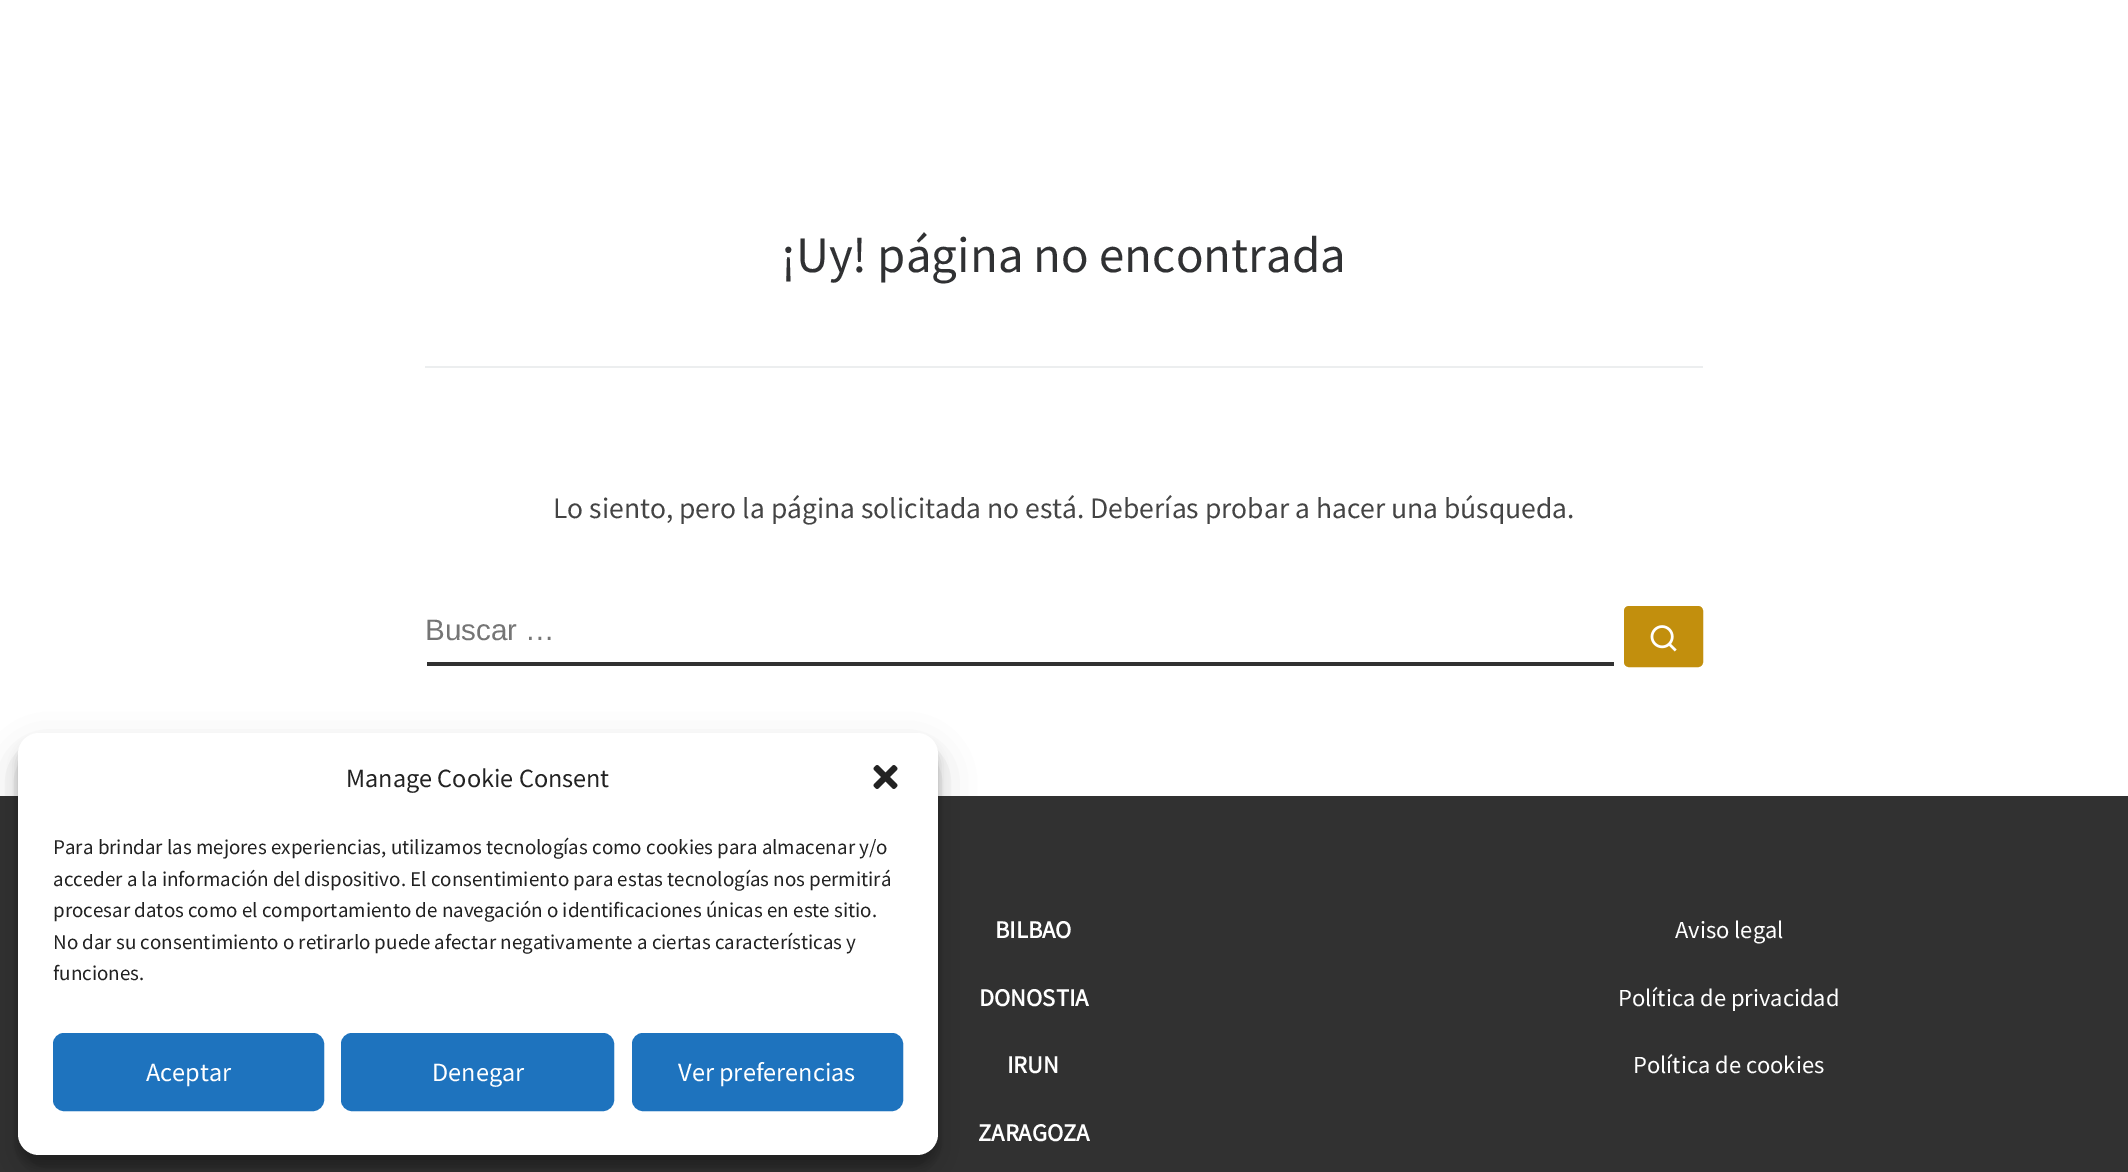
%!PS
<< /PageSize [2128 1172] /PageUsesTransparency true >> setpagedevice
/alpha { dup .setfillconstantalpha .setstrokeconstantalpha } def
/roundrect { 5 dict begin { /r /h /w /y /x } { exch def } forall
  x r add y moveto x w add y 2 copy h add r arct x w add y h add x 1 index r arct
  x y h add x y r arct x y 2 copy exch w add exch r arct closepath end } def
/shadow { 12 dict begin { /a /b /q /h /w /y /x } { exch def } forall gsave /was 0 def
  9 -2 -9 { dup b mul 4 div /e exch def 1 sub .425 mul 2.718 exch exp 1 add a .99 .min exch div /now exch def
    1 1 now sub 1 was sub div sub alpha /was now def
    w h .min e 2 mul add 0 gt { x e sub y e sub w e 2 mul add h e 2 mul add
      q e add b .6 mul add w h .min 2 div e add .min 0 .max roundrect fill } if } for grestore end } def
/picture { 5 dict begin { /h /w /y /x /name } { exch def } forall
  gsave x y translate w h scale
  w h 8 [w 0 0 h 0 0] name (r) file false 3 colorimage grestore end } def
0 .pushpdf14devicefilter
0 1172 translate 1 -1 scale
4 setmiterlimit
1 setgray
0 0 2128 1172 rectfill
/SourceSansPro-Regular [51 0 0 -51 0 0] selectfont
0.188 0.192 0.2 setrgbcolor
781 272 moveto (¡Uy! página no encontrada) show
0.925 0.933 0.937 setrgbcolor
425 366 1278 2 rectfill
/SourceSansPro-Regular [29.55 0 0 -29.55 0 0] selectfont
0.267 setgray
553 518 moveto (Lo siento, pero la página solicitada no está. Deberías probar a hacer una búsqueda.) show
0.192 setgray
427 662 1187 4 rectfill
/LiberationSans-Regular [29.55 0 0 -29.55 0 0] selectfont
0.459 setgray
425 640 moveto (Buscar …) show
0.761 0.561 0.051 setrgbcolor
1626 608 75 57 3 roundrect gsave fill grestore
4 setlinewidth
stroke
(img1.rgb) 1650 625 27 27 picture
0.192 setgray
0 796 2128 376 rectfill
/SourceSansPro-Bold [24.5 0 0 -24.5 0 0] selectfont
1 setgray
995 938 moveto (BILBAO) show
979 1006 moveto (DONOSTIA) show
1007 1073 moveto (IRUN) show
978 1141 moveto (ZARAGOZA) show
/SourceSansPro-Regular [24.5 0 0 -24.5 0 0] selectfont
1675 938 moveto (Aviso legal) show
1618 1006 moveto (Política de privacidad) show
1633 1073 moveto (Política de cookies) show
0 setgray
18 744 920 422 21 5 0.23 shadow
18 751 920 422 21 17.5 0.19 shadow
1 setgray
18 733 920 422 21 roundrect fill
/SourceSansPro-Regular [26.25 0 0 -26.25 0 0] selectfont
0.133 setgray
346 787 moveto (Manage Cookie Consent) show
(img2.rgb) 873 765 25 24 picture
/SourceSansPro-Regular [21 0 0 -21 0 0] selectfont
53 854 moveto (Para brindar las mejores experiencias, utilizamos tecnologías como cookies para almacenar y/o) show
53 886 moveto (acceder a la información del dispositivo. El consentimiento para estas tecnologías nos permitirá) show
53 917 moveto (procesar datos como el comportamiento de navegación o identificaciones únicas en este sitio.) show
53 949 moveto (No dar su consentimiento o retirarlo puede afectar negativamente a ciertas características y) show
53 980 moveto (funciones.) show
0.118 0.451 0.745 setrgbcolor
54 1034 269 76 10 roundrect gsave fill grestore
2 setlinewidth
stroke
/SourceSansPro-Regular [26.25 0 0 -26.25 0 0] selectfont
1 setgray
146 1081 moveto (Aceptar) show
0.118 0.451 0.745 setrgbcolor
342 1034 271 76 10 roundrect gsave fill grestore
stroke
1 setgray
432 1081 moveto (Denegar) show
0.118 0.451 0.745 setrgbcolor
633 1034 269 76 10 roundrect gsave fill grestore
stroke
1 setgray
678 1081 moveto (Ver preferencias) show
.poppdf14devicefilter showpage
